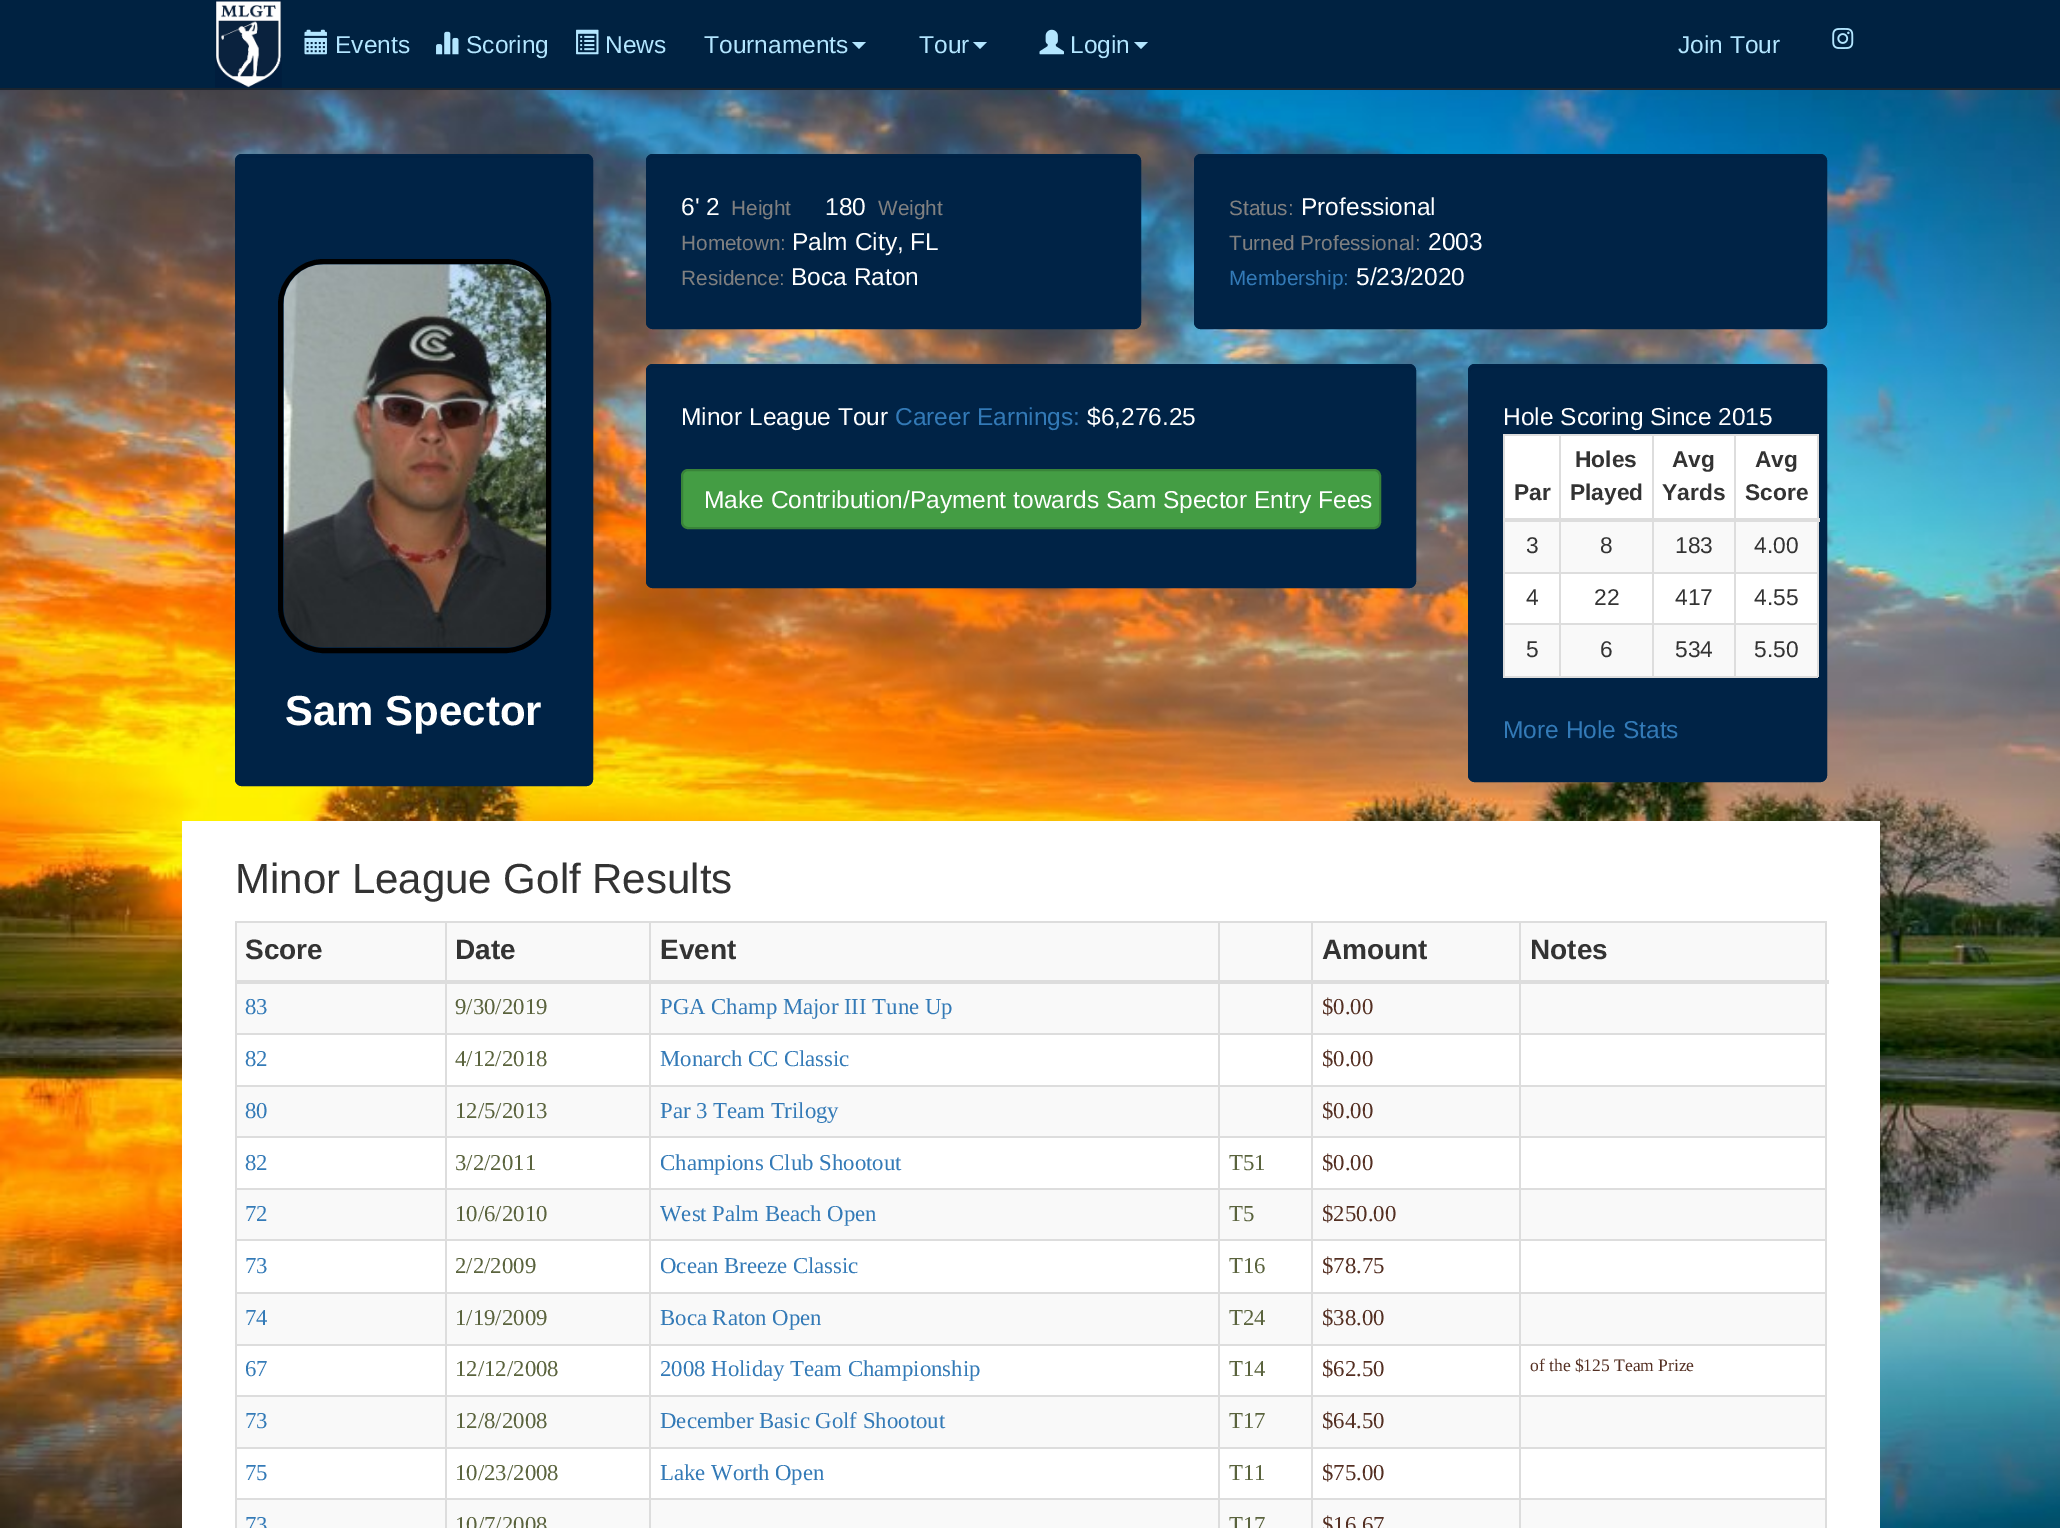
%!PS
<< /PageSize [2060 1528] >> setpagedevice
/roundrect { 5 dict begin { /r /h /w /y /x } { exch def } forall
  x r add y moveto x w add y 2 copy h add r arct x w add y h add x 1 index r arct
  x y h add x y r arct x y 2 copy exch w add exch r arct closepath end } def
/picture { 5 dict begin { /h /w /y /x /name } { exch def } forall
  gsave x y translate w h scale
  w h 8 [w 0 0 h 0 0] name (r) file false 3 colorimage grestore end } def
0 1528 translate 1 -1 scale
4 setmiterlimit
1 setgray
0 0 2060 1528 rectfill
0 0.133 0.255 setrgbcolor
0 0 2060 88 rectfill
0.102 0.141 0.184 setrgbcolor
0 88 2060 2 rectfill
(img1.rgb) 215 0 67 88 picture
(img2.rgb) 304 29 23 26 picture
/LiberationSans-Regular [24.5 0 0 -24.5 0 0] selectfont
0.702 0.902 1 setrgbcolor
335 53 moveto (Events) show
(img3.rgb) 436 31 23 24 picture
466 53 moveto (Scoring) show
(img4.rgb) 576 29 23 26 picture
605 53 moveto (News) show
704 53 moveto (Tournaments) show
newpath 852 42 moveto 866 42 lineto 859 49 lineto closepath fill
919 53 moveto (Tour) show
newpath 973 42 moveto 987 42 lineto 980 49 lineto closepath fill
(img5.rgb) 1039 29 25 26 picture
1070 53 moveto (Login) show
newpath 1134 42 moveto 1148 42 lineto 1141 49 lineto closepath fill
1678 53 moveto (Join Tour) show
(img6.rgb) 1832 28 22 21 picture
(img7.rgb) 0 90 2060 1438 picture
0 0.137 0.275 setrgbcolor
646 154 495 175 7 roundrect fill
0 0.129 0.263 setrgbcolor
newpath 653 158 moveto 1134 158 lineto 1137 158 1139 160 1139 163 curveto 1139 161 lineto 1139 158 1137 156 1134 156 curveto 653 156 lineto 650 156 648 158 648 161 curveto 648 163 lineto 648 160 650 158 653 158 curveto closepath fill
0 0.137 0.275 setrgbcolor
2 setlinewidth
647 155 493 173 6 roundrect stroke
1 setgray
681 215 moveto (6' 2) show
/LiberationSans-Regular [20.75 0 0 -20.75 0 0] selectfont
0.502 setgray
731 215 moveto (Height) show
/LiberationSans-Regular [24.5 0 0 -24.5 0 0] selectfont
1 setgray
825 215 moveto (180) show
/LiberationSans-Regular [20.75 0 0 -20.75 0 0] selectfont
0.502 setgray
878 215 moveto (Weight) show
681 250 moveto (Hometown:) show
/LiberationSans-Regular [24.5 0 0 -24.5 0 0] selectfont
1 setgray
792 250 moveto (Palm City, FL) show
/LiberationSans-Regular [20.75 0 0 -20.75 0 0] selectfont
0.502 setgray
681 285 moveto (Residence:) show
/LiberationSans-Regular [24.5 0 0 -24.5 0 0] selectfont
1 setgray
791 285 moveto (Boca Raton) show
0 0.137 0.275 setrgbcolor
1194 154 633 175 7 roundrect fill
0 0.129 0.263 setrgbcolor
newpath 1200 158 moveto 1820 158 lineto 1823 158 1825 160 1825 163 curveto 1825 160 1824 156 1820 156 curveto 1200 156 lineto 1196 156 1195 160 1195 163 curveto 1195 160 1198 158 1200 158 curveto closepath fill
0 0.137 0.275 setrgbcolor
1195 155 631 173 6 roundrect stroke
/LiberationSans-Regular [20.75 0 0 -20.75 0 0] selectfont
0.502 setgray
1229 215 moveto (Status:) show
/LiberationSans-Regular [24.5 0 0 -24.5 0 0] selectfont
1 setgray
1301 215 moveto (Professional) show
/LiberationSans-Regular [20.75 0 0 -20.75 0 0] selectfont
0.502 setgray
1229 250 moveto (Turned Professional:) show
/LiberationSans-Regular [24.5 0 0 -24.5 0 0] selectfont
1 setgray
1428 250 moveto (2003) show
/LiberationSans-Regular [20.75 0 0 -20.75 0 0] selectfont
0.2 0.478 0.718 setrgbcolor
1229 285 moveto (Membership:) show
/LiberationSans-Regular [24.5 0 0 -24.5 0 0] selectfont
1 setgray
1356 285 moveto (5/23/2020) show
0 0.137 0.275 setrgbcolor
235 154 358 632 7 roundrect fill
0 0.129 0.263 setrgbcolor
newpath 242 158 moveto 586 158 lineto 589 158 592 160 592 163 curveto 592 160 591 156 587 156 curveto 241 156 lineto 237 156 236 160 236 163 curveto 236 160 239 158 242 158 curveto closepath fill
0 0.137 0.275 setrgbcolor
236 155 356 630 6 roundrect stroke
0 setgray
5 setlinewidth
280.5 261.5 268 389 43.5 roundrect stroke
(img8.rgb) 283 264 263 384 picture
/LiberationSans-Bold [42 0 0 -42 0 0] selectfont
1 setgray
285 725 moveto (Sam Spector) show
0 0.137 0.275 setrgbcolor
646 364 770 224 7 roundrect fill
0 0.129 0.263 setrgbcolor
newpath 653 368 moveto 1409 368 lineto 1412 368 1414 370 1414 373 curveto 1414 370 1413 366 1409 366 curveto 653 366 lineto 649 366 648 370 648 373 curveto 648 370 650 368 653 368 curveto closepath fill
0 0.137 0.275 setrgbcolor
2 setlinewidth
647 365 768 222 6 roundrect stroke
/LiberationSans-Regular [24.5 0 0 -24.5 0 0] selectfont
1 setgray
681 425 moveto (Minor League Tour) show
0.2 0.478 0.718 setrgbcolor
895 425 moveto (Career Earnings:) show
1 setgray
1087 425 moveto ($6,276.25) show
0.267 0.616 0.267 setrgbcolor
682 470 698 58 6 roundrect gsave fill grestore
0.224 0.518 0.224 setrgbcolor
stroke
1 setgray
704 508 moveto (Make Contribution/Payment towards Sam Spector Entry Fees) show
0 0.137 0.275 setrgbcolor
1468 364 359 418 7 roundrect fill
0 0.129 0.263 setrgbcolor
newpath 1475 368 moveto 1820 368 lineto 1823 368 1825 370 1825 373 curveto 1825 370 1824 366 1820 366 curveto 1475 366 lineto 1471 366 1470 370 1470 373 curveto 1470 370 1472 368 1475 368 curveto closepath fill
0 0.137 0.275 setrgbcolor
1469 365 357 416 6 roundrect stroke
1 setgray
1503 425 moveto (Hole Scoring Since 2015) show
1505 436 312 187 rectfill
0.867 setgray
1503 434 315 2 rectfill
1817 434 2 243 rectfill
1503 676 315 2 rectfill
1503 434 2 243 rectfill
/LiberationSans-Bold [22.75 0 0 -22.75 0 0] selectfont
0.2 setgray
1514 500 moveto (Par) show
1575 467 moveto (Holes) show
1570 500 moveto (Played) show
1672 467 moveto (Avg) show
1662 500 moveto (Yards) show
0.976 setgray
1505 522 312 50 rectfill
0.867 setgray
1734 572 84 2 rectfill
1734 623 84 2 rectfill
0.976 setgray
1505 625 312 51 rectfill
0.867 setgray
1734 623 2 54 rectfill
1652 623 84 2 rectfill
1734 572 2 53 rectfill
1652 572 84 2 rectfill
1652 623 2 54 rectfill
1559 623 95 2 rectfill
1652 572 2 53 rectfill
1559 572 95 2 rectfill
1559 623 2 54 rectfill
1503 623 58 2 rectfill
1559 572 2 53 rectfill
1503 572 58 2 rectfill
1559 434 2 140 rectfill
1652 434 2 140 rectfill
1734 434 2 140 rectfill
1503 518 317 4 rectfill
0.2 setgray
1755 467 moveto (Avg) show
1745 500 moveto (Score) show
/LiberationSans-Regular [22.75 0 0 -22.75 0 0] selectfont
1526 553 moveto (3) show
1600 553 moveto (8) show
1675 553 moveto (183) show
1754 553 moveto (4.00) show
1526 605 moveto (4) show
1594 605 moveto (22) show
1675 605 moveto (417) show
1754 605 moveto (4.55) show
1526 657 moveto (5) show
1600 657 moveto (6) show
1675 657 moveto (534) show
1754 657 moveto (5.50) show
/LiberationSans-Regular [24.5 0 0 -24.5 0 0] selectfont
0.2 0.478 0.718 setrgbcolor
1503 738 moveto (More Hole Stats) show
1 setgray
182 821 1698 707 rectfill
/LiberationSans-Regular [42 0 0 -42 0 0] selectfont
0.2 setgray
235 893 moveto (Minor League Golf Results) show
0.867 setgray
235 921 1592 2 rectfill
1825 921 2 607 rectfill
235 921 2 607 rectfill
0.976 setgray
237 923 1588 57 rectfill
/LiberationSans-Bold [28 0 0 -28 0 0] selectfont
0.2 setgray
245 959 moveto (Score) show
455 959 moveto (Date) show
660 959 moveto (Event) show
1322 959 moveto (Amount) show
1530 959 moveto (Notes) show
0.976 setgray
237 984 1588 49 rectfill
0.867 setgray
1519 1033 308 2 rectfill
1519 1085 308 2 rectfill
0.976 setgray
237 1087 1588 49 rectfill
0.867 setgray
1519 1136 308 2 rectfill
1519 1188 308 2 rectfill
0.976 setgray
237 1190 1588 49 rectfill
0.867 setgray
1519 1239 308 2 rectfill
1519 1292 308 2 rectfill
0.976 setgray
237 1294 1588 50 rectfill
0.867 setgray
1519 1344 308 2 rectfill
1519 1395 308 2 rectfill
0.976 setgray
237 1397 1588 50 rectfill
0.867 setgray
1519 1447 308 2 rectfill
1519 1498 308 2 rectfill
0.976 setgray
237 1500 1588 28 rectfill
0.867 setgray
1519 1498 2 30 rectfill
1311 1498 210 2 rectfill
1519 1447 2 53 rectfill
1311 1447 210 2 rectfill
1519 1395 2 54 rectfill
1311 1395 210 2 rectfill
1519 1344 2 53 rectfill
1311 1344 210 2 rectfill
1519 1292 2 54 rectfill
1311 1292 210 2 rectfill
1519 1239 2 54 rectfill
1311 1239 210 2 rectfill
1519 1188 2 53 rectfill
1311 1188 210 2 rectfill
1519 1136 2 54 rectfill
1311 1136 210 2 rectfill
1519 1085 2 53 rectfill
1311 1085 210 2 rectfill
1519 1033 2 54 rectfill
1311 1033 210 2 rectfill
1311 1498 2 30 rectfill
1218 1498 95 2 rectfill
1311 1447 2 53 rectfill
1218 1447 95 2 rectfill
1311 1395 2 54 rectfill
1218 1395 95 2 rectfill
1311 1344 2 53 rectfill
1218 1344 95 2 rectfill
1311 1292 2 54 rectfill
1218 1292 95 2 rectfill
1311 1239 2 54 rectfill
1218 1239 95 2 rectfill
1311 1188 2 53 rectfill
1218 1188 95 2 rectfill
1311 1136 2 54 rectfill
1218 1136 95 2 rectfill
1311 1085 2 53 rectfill
1218 1085 95 2 rectfill
1311 1033 2 54 rectfill
1218 1033 95 2 rectfill
1218 1498 2 30 rectfill
649 1498 571 2 rectfill
1218 1447 2 53 rectfill
649 1447 571 2 rectfill
1218 1395 2 54 rectfill
649 1395 571 2 rectfill
1218 1344 2 53 rectfill
649 1344 571 2 rectfill
1218 1292 2 54 rectfill
649 1292 571 2 rectfill
1218 1239 2 54 rectfill
649 1239 571 2 rectfill
1218 1188 2 53 rectfill
649 1188 571 2 rectfill
1218 1136 2 54 rectfill
649 1136 571 2 rectfill
1218 1085 2 53 rectfill
649 1085 571 2 rectfill
1218 1033 2 54 rectfill
649 1033 571 2 rectfill
649 1498 2 30 rectfill
445 1498 206 2 rectfill
649 1447 2 53 rectfill
445 1447 206 2 rectfill
649 1395 2 54 rectfill
445 1395 206 2 rectfill
649 1344 2 53 rectfill
445 1344 206 2 rectfill
649 1292 2 54 rectfill
445 1292 206 2 rectfill
649 1239 2 54 rectfill
445 1239 206 2 rectfill
649 1188 2 53 rectfill
445 1188 206 2 rectfill
649 1136 2 54 rectfill
445 1136 206 2 rectfill
649 1085 2 53 rectfill
445 1085 206 2 rectfill
649 1033 2 54 rectfill
445 1033 206 2 rectfill
445 1498 2 30 rectfill
235 1498 211 2 rectfill
445 1447 2 53 rectfill
235 1447 211 2 rectfill
445 1395 2 54 rectfill
235 1395 211 2 rectfill
445 1344 2 53 rectfill
235 1344 211 2 rectfill
445 1292 2 54 rectfill
235 1292 211 2 rectfill
445 1239 2 54 rectfill
235 1239 211 2 rectfill
445 1188 2 53 rectfill
235 1188 211 2 rectfill
445 1136 2 54 rectfill
235 1136 211 2 rectfill
445 1085 2 53 rectfill
235 1085 211 2 rectfill
445 1033 2 54 rectfill
235 1033 211 2 rectfill
445 921 2 113 rectfill
649 921 2 113 rectfill
1218 921 2 113 rectfill
1311 921 2 113 rectfill
1519 921 2 113 rectfill
235 980 1594 4 rectfill
/LiberationSerif-Regular [22.75 0 0 -22.75 0 0] selectfont
0.2 0.478 0.718 setrgbcolor
245 1014 moveto (83) show
0.353 0.388 0.239 setrgbcolor
455 1014 moveto (9/30/2019) show
0.2 0.478 0.718 setrgbcolor
660 1014 moveto (PGA Champ Major III Tune Up) show
0.329 0.184 0.133 setrgbcolor
1322 1014 moveto ($0.00) show
0.2 0.478 0.718 setrgbcolor
245 1066 moveto (82) show
0.353 0.388 0.239 setrgbcolor
455 1066 moveto (4/12/2018) show
0.2 0.478 0.718 setrgbcolor
660 1066 moveto (Monarch CC Classic) show
0.329 0.184 0.133 setrgbcolor
1322 1066 moveto ($0.00) show
0.2 0.478 0.718 setrgbcolor
245 1118 moveto (80) show
0.353 0.388 0.239 setrgbcolor
455 1118 moveto (12/5/2013) show
0.2 0.478 0.718 setrgbcolor
660 1118 moveto (Par 3 Team Trilogy) show
0.329 0.184 0.133 setrgbcolor
1322 1118 moveto ($0.00) show
0.2 0.478 0.718 setrgbcolor
245 1170 moveto (82) show
0.353 0.388 0.239 setrgbcolor
455 1170 moveto (3/2/2011) show
0.2 0.478 0.718 setrgbcolor
660 1170 moveto (Champions Club Shootout) show
0.353 0.388 0.239 setrgbcolor
1229 1170 moveto (T51) show
0.329 0.184 0.133 setrgbcolor
1322 1170 moveto ($0.00) show
0.2 0.478 0.718 setrgbcolor
245 1221 moveto (72) show
0.353 0.388 0.239 setrgbcolor
455 1221 moveto (10/6/2010) show
0.2 0.478 0.718 setrgbcolor
660 1221 moveto (West Palm Beach Open) show
0.353 0.388 0.239 setrgbcolor
1229 1221 moveto (T5) show
0.329 0.184 0.133 setrgbcolor
1322 1221 moveto ($250.00) show
0.2 0.478 0.718 setrgbcolor
245 1273 moveto (73) show
0.353 0.388 0.239 setrgbcolor
455 1273 moveto (2/2/2009) show
0.2 0.478 0.718 setrgbcolor
660 1273 moveto (Ocean Breeze Classic) show
0.353 0.388 0.239 setrgbcolor
1229 1273 moveto (T16) show
0.329 0.184 0.133 setrgbcolor
1322 1273 moveto ($78.75) show
0.2 0.478 0.718 setrgbcolor
245 1325 moveto (74) show
0.353 0.388 0.239 setrgbcolor
455 1325 moveto (1/19/2009) show
0.2 0.478 0.718 setrgbcolor
660 1325 moveto (Boca Raton Open) show
0.353 0.388 0.239 setrgbcolor
1229 1325 moveto (T24) show
0.329 0.184 0.133 setrgbcolor
1322 1325 moveto ($38.00) show
0.2 0.478 0.718 setrgbcolor
245 1376 moveto (67) show
0.353 0.388 0.239 setrgbcolor
455 1376 moveto (12/12/2008) show
0.2 0.478 0.718 setrgbcolor
660 1376 moveto (2008 Holiday Team Championship) show
0.353 0.388 0.239 setrgbcolor
1229 1376 moveto (T14) show
0.329 0.184 0.133 setrgbcolor
1322 1376 moveto ($62.50) show
/LiberationSerif-Regular [17.5 0 0 -17.5 0 0] selectfont
1530 1371 moveto (of the $125 Team Prize) show
/LiberationSerif-Regular [22.75 0 0 -22.75 0 0] selectfont
0.2 0.478 0.718 setrgbcolor
245 1428 moveto (73) show
0.353 0.388 0.239 setrgbcolor
455 1428 moveto (12/8/2008) show
0.2 0.478 0.718 setrgbcolor
660 1428 moveto (December Basic Golf Shootout) show
0.353 0.388 0.239 setrgbcolor
1229 1428 moveto (T17) show
0.329 0.184 0.133 setrgbcolor
1322 1428 moveto ($64.50) show
0.2 0.478 0.718 setrgbcolor
245 1480 moveto (75) show
0.353 0.388 0.239 setrgbcolor
455 1480 moveto (10/23/2008) show
0.2 0.478 0.718 setrgbcolor
660 1480 moveto (Lake Worth Open) show
0.353 0.388 0.239 setrgbcolor
1229 1480 moveto (T11) show
0.329 0.184 0.133 setrgbcolor
1322 1480 moveto ($75.00) show
0.2 0.478 0.718 setrgbcolor
245 1532 moveto (73) show
0.353 0.388 0.239 setrgbcolor
455 1532 moveto (10/7/2008) show
1229 1532 moveto (T17) show
0.329 0.184 0.133 setrgbcolor
1322 1532 moveto ($16.67) show
showpage
